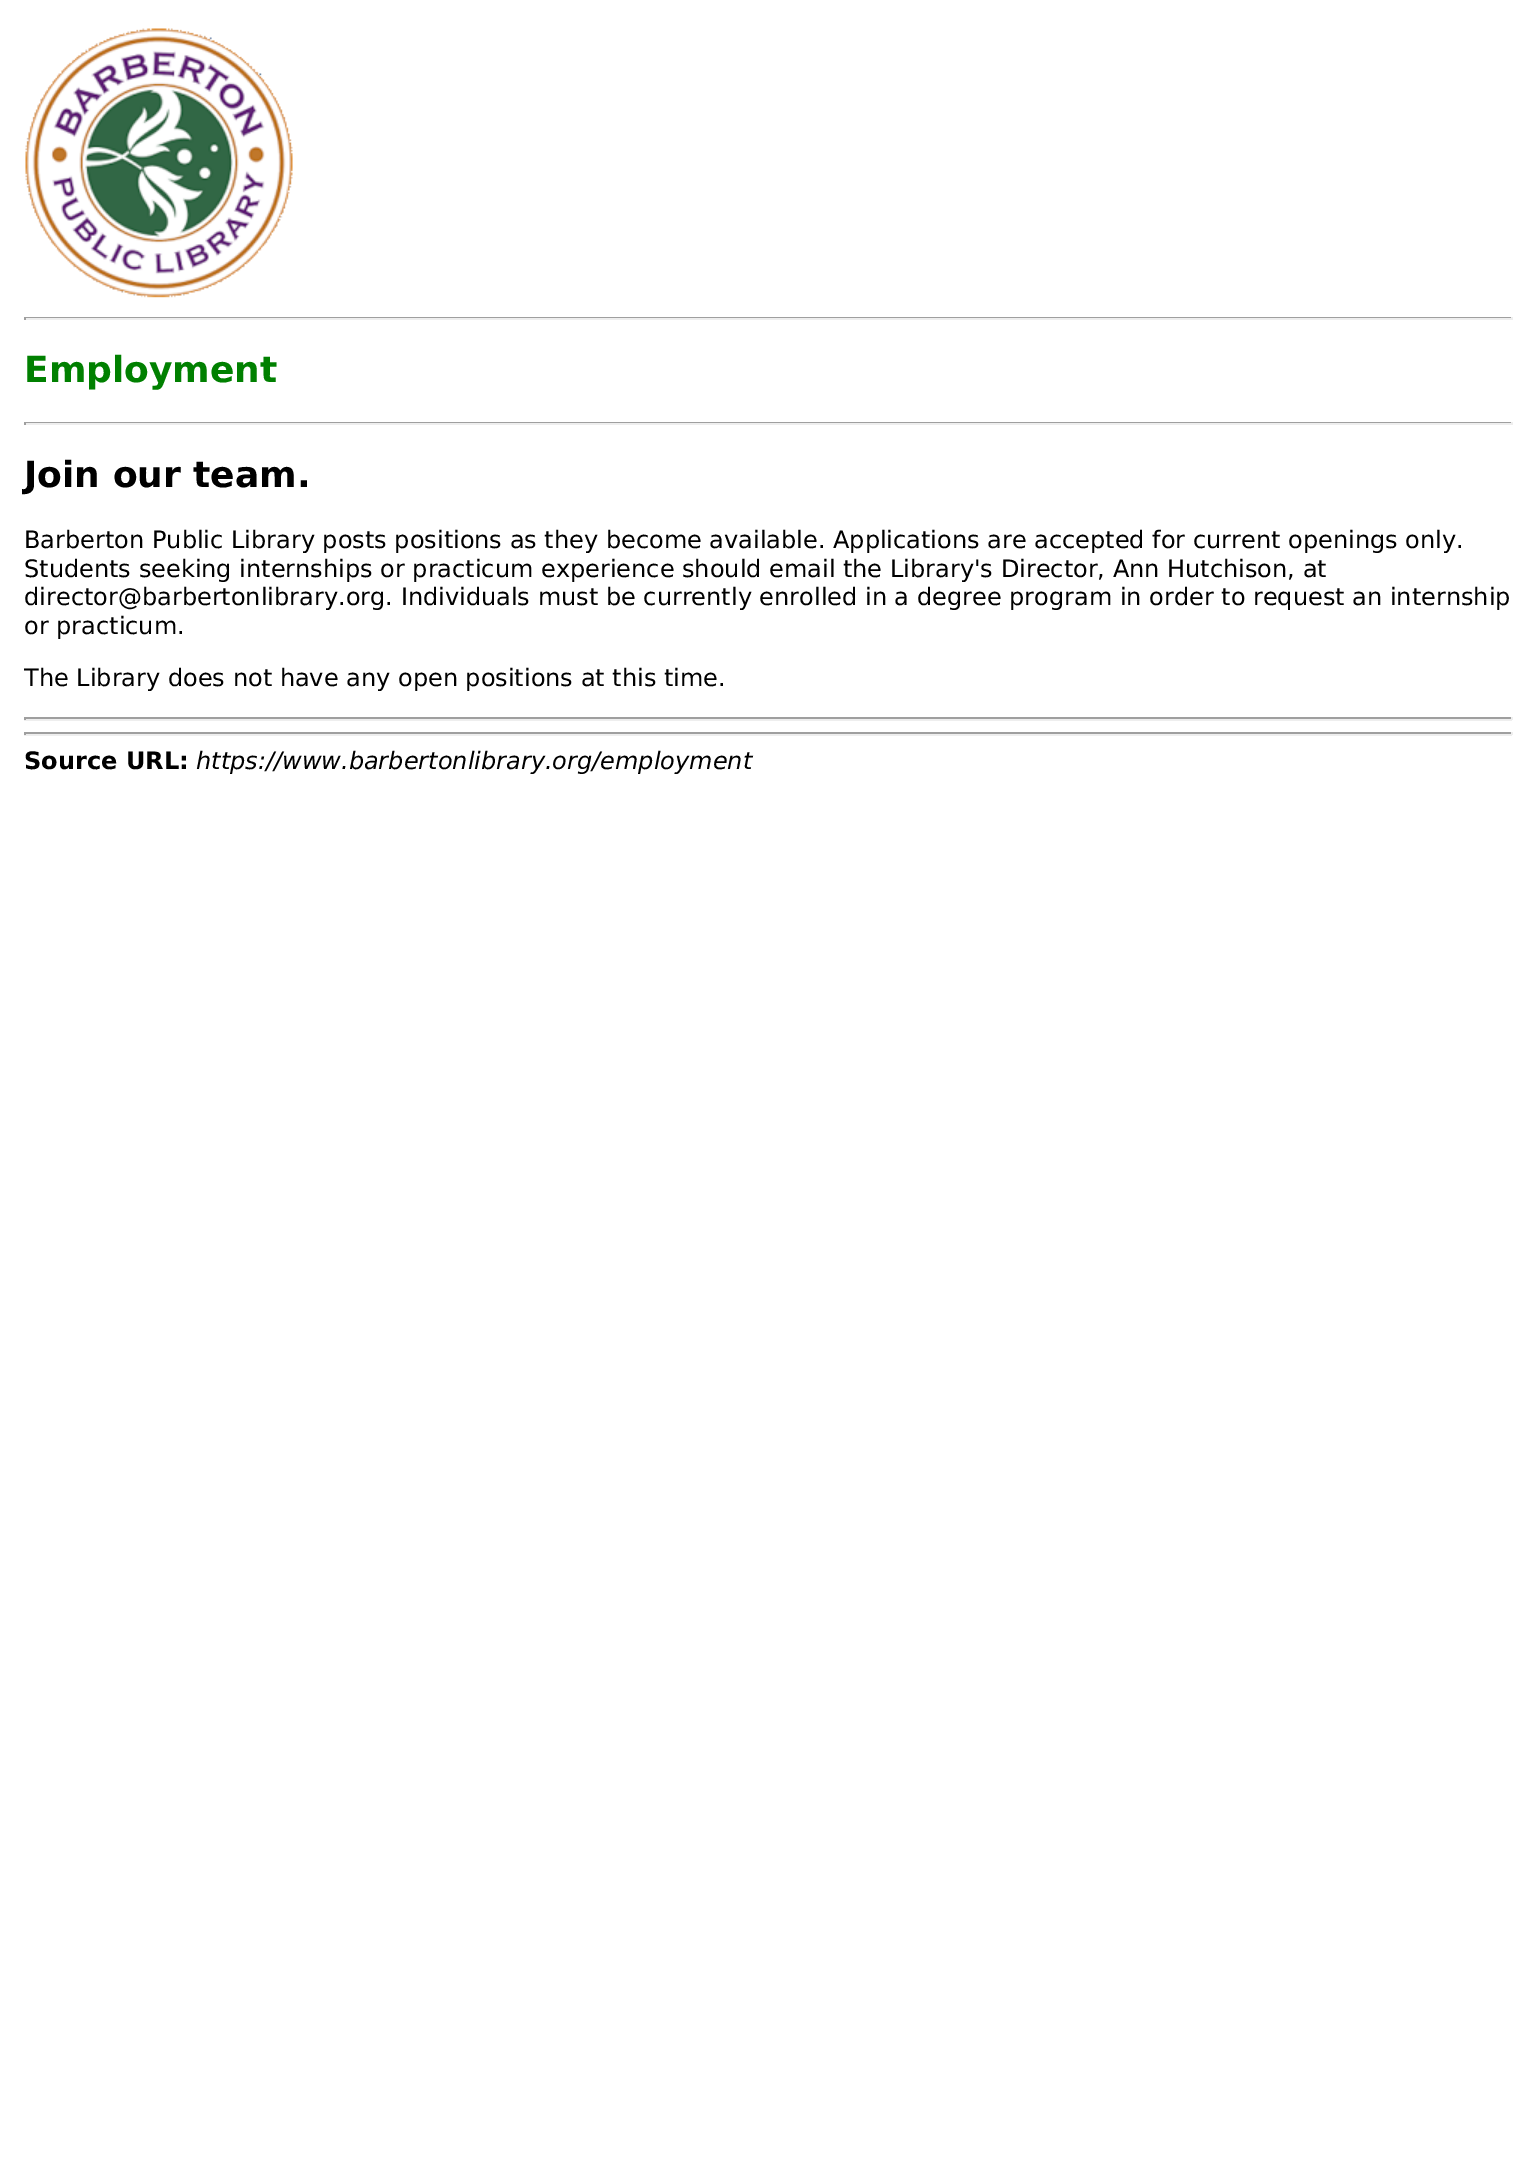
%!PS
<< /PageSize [1536 2161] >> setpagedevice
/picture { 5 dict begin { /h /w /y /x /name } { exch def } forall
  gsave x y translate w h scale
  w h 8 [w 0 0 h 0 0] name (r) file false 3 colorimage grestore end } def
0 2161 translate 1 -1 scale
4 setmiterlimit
1 setgray
0 0 1536 2161 rectfill
(img1.rgb) 25 28 268 270 picture
0.624 setgray
24 317 1488 1 rectfill
0.933 setgray
1511 317 2 3 rectfill
24 318 1488 2 rectfill
0.624 setgray
24 317 2 3 rectfill
/DejaVuSans-Bold [36 0 0 -36 0 0] selectfont
0 0.502 0 setrgbcolor
24 382 moveto (Employment) show
0.624 setgray
24 422 1488 1 rectfill
0.933 setgray
1511 422 2 3 rectfill
24 423 1488 2 rectfill
0.624 setgray
24 422 2 3 rectfill
0 setgray
24 487 moveto (Join our team.) show
/DejaVuSans-Regular [24 0 0 -24 0 0] selectfont
24 548 moveto (Barberton Public Library posts positions as they become available. Applications are accepted for current openings only.) show
24 577 moveto (Students seeking internships or practicum experience should email the Library's Director, Ann Hutchison, at) show
24 605 moveto (director@barbertonlibrary.org. Individuals must be currently enrolled in a degree program in order to request an internship) show
24 634 moveto (or practicum.) show
24 686 moveto (The Library does not have any open positions at this time.) show
0.624 setgray
24 717 1488 2 rectfill
0.933 setgray
1511 717 2 3 rectfill
24 719 1488 2 rectfill
0.624 setgray
24 717 2 3 rectfill
24 732 1488 2 rectfill
0.933 setgray
1511 732 2 3 rectfill
24 734 1488 2 rectfill
0.624 setgray
24 732 2 3 rectfill
/DejaVuSans-Bold [24 0 0 -24 0 0] selectfont
0 setgray
24 769 moveto (Source URL:) show
/DejaVuSans-Italic [24 0 0 -24 0 0] selectfont
196 769 moveto (https://www.barbertonlibrary.org/employment) show
showpage
